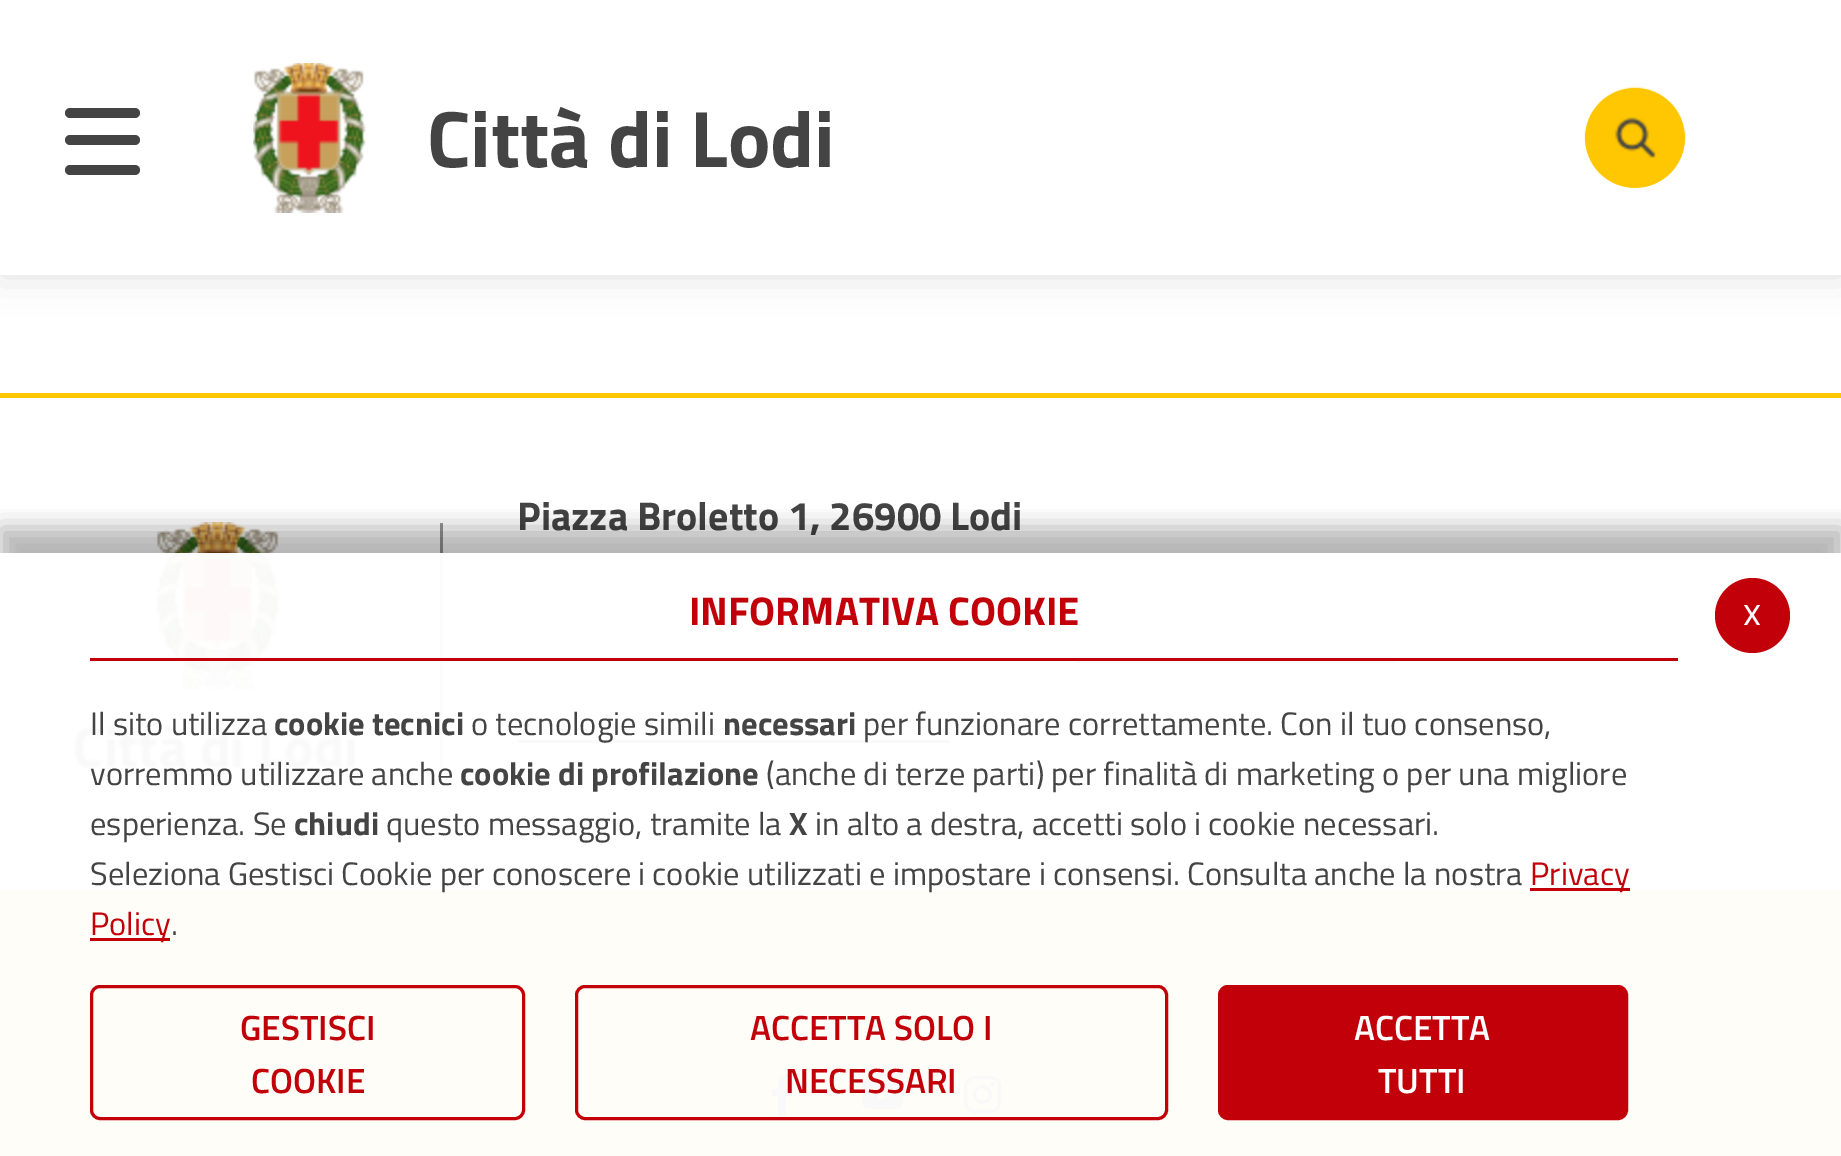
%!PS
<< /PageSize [1841 1156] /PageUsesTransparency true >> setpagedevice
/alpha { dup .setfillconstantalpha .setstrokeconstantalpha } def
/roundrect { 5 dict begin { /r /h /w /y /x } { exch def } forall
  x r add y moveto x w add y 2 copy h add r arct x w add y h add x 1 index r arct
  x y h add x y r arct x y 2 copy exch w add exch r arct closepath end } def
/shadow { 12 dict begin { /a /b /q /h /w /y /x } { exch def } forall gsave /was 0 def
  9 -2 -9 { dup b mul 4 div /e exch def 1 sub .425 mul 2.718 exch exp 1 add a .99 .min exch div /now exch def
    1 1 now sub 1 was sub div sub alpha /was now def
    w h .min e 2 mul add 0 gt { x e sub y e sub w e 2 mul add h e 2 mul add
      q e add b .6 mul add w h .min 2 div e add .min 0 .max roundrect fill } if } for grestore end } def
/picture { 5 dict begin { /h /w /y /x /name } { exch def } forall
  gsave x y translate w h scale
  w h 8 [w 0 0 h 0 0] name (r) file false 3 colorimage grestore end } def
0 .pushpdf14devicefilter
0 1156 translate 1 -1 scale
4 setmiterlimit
1 setgray
0 0 1841 1156 rectfill
0.867 setgray
0 0 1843 275 0 19 1 shadow
1 setgray
0 0 1841 275 rectfill
0.267 setgray
65 108 75 10 5 roundrect fill
65 135 75 10 5 roundrect fill
65 165 75 10 5 roundrect fill
(img1.rgb) 253 63 113 150 picture
/TitilliumWeb-Bold [80 0 0 -80 0 0] selectfont
427 167 moveto (Città di Lodi) show
1 0.776 0.008 setrgbcolor
newpath 1635 138 50 0 360 arc closepath fill
(img2.rgb) 1584 87 102 101 picture
0 393 1841 5 rectfill
/TitilliumWeb-Bold [40 0 0 -40 0 0] selectfont
0.267 setgray
517 530 moveto (Piazza Broletto 1, 26900 Lodi) show
1075 661 320 2 rectfill
518 740 432 3 rectfill
0.592 setgray
440 523 3 247 rectfill
(img3.rgb) 75 522 280 248 picture
1 0.776 0.008 setrgbcolor
0 890 1841 266 rectfill
(img4.rgb) 771 1073 23 43 picture
(img5.rgb) 861 1080 43 29 picture
(img6.rgb) 963 1075 39 39 picture
gsave
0 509 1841 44 rectclip
0 setgray
0 528 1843 605 0 12.5 0.3 shadow
grestore
0.97 alpha
1 setgray
0 553 1841 603 rectfill
1 alpha
0.757 0 0.039 setrgbcolor
90 658 1588 3 rectfill
689 625 moveto (INFORMATIVA COOKIE) show
/TitilliumWeb-Regular [32.5 0 0 -32.5 0 0] selectfont
0.267 setgray
90 735 moveto (Il sito utilizza) show
/TitilliumWeb-Bold [32.5 0 0 -32.5 0 0] selectfont
274 735 moveto (cookie tecnici) show
/TitilliumWeb-Regular [32.5 0 0 -32.5 0 0] selectfont
471 735 moveto (o tecnologie simili) show
/TitilliumWeb-Bold [32.5 0 0 -32.5 0 0] selectfont
723 735 moveto (necessari) show
/TitilliumWeb-Regular [32.5 0 0 -32.5 0 0] selectfont
863 735 moveto (per funzionare correttamente. Con il tuo consenso,) show
90 785 moveto (vorremmo utilizzare anche) show
/TitilliumWeb-Bold [32.5 0 0 -32.5 0 0] selectfont
460 785 moveto (cookie di profilazione) show
/TitilliumWeb-Regular [32.5 0 0 -32.5 0 0] selectfont
766 785 moveto (\(anche di terze parti\) per finalità di marketing o per una migliore) show
90 835 moveto (esperienza. Se) show
/TitilliumWeb-Bold [32.5 0 0 -32.5 0 0] selectfont
294 835 moveto (chiudi) show
/TitilliumWeb-Regular [32.5 0 0 -32.5 0 0] selectfont
386 835 moveto (questo messaggio, tramite la) show
/TitilliumWeb-Bold [32.5 0 0 -32.5 0 0] selectfont
789 835 moveto (X) show
/TitilliumWeb-Regular [32.5 0 0 -32.5 0 0] selectfont
815 835 moveto (in alto a destra, accetti solo i cookie necessari.) show
90 885 moveto (Seleziona Gestisci Cookie per conoscere i cookie utilizzati e impostare i consensi. Consulta anche la nostra) show
0.757 0 0.039 setrgbcolor
1530 888 100 3 rectfill
1530 885 moveto (Privacy) show
90 938 80 3 rectfill
90 935 moveto (Policy) show
0.267 setgray
171 935 moveto (.) show
0.757 0 0.039 setrgbcolor
3 setlinewidth
91.5 986.5 432 132 8.5 roundrect stroke
/TitilliumWeb-SemiBold [35 0 0 -35 0 0] selectfont
240 1040 moveto (GESTISCI) show
251 1093 moveto (COOKIE) show
576.5 986.5 590 132 8.5 roundrect stroke
750 1040 moveto (ACCETTA SOLO I) show
785 1093 moveto (NECESSARI) show
1219.5 986.5 407 132 8.5 roundrect gsave fill grestore
stroke
1 setgray
1354 1040 moveto (ACCETTA) show
1378 1093 moveto (TUTTI) show
0.757 0 0.039 setrgbcolor
newpath 1752.5 615.5 37.5 0 360 arc closepath fill
/TitilliumWeb-Regular [40 0 0 -40 0 0] selectfont
1 setgray
1743 625 moveto (x) show
.poppdf14devicefilter showpage
